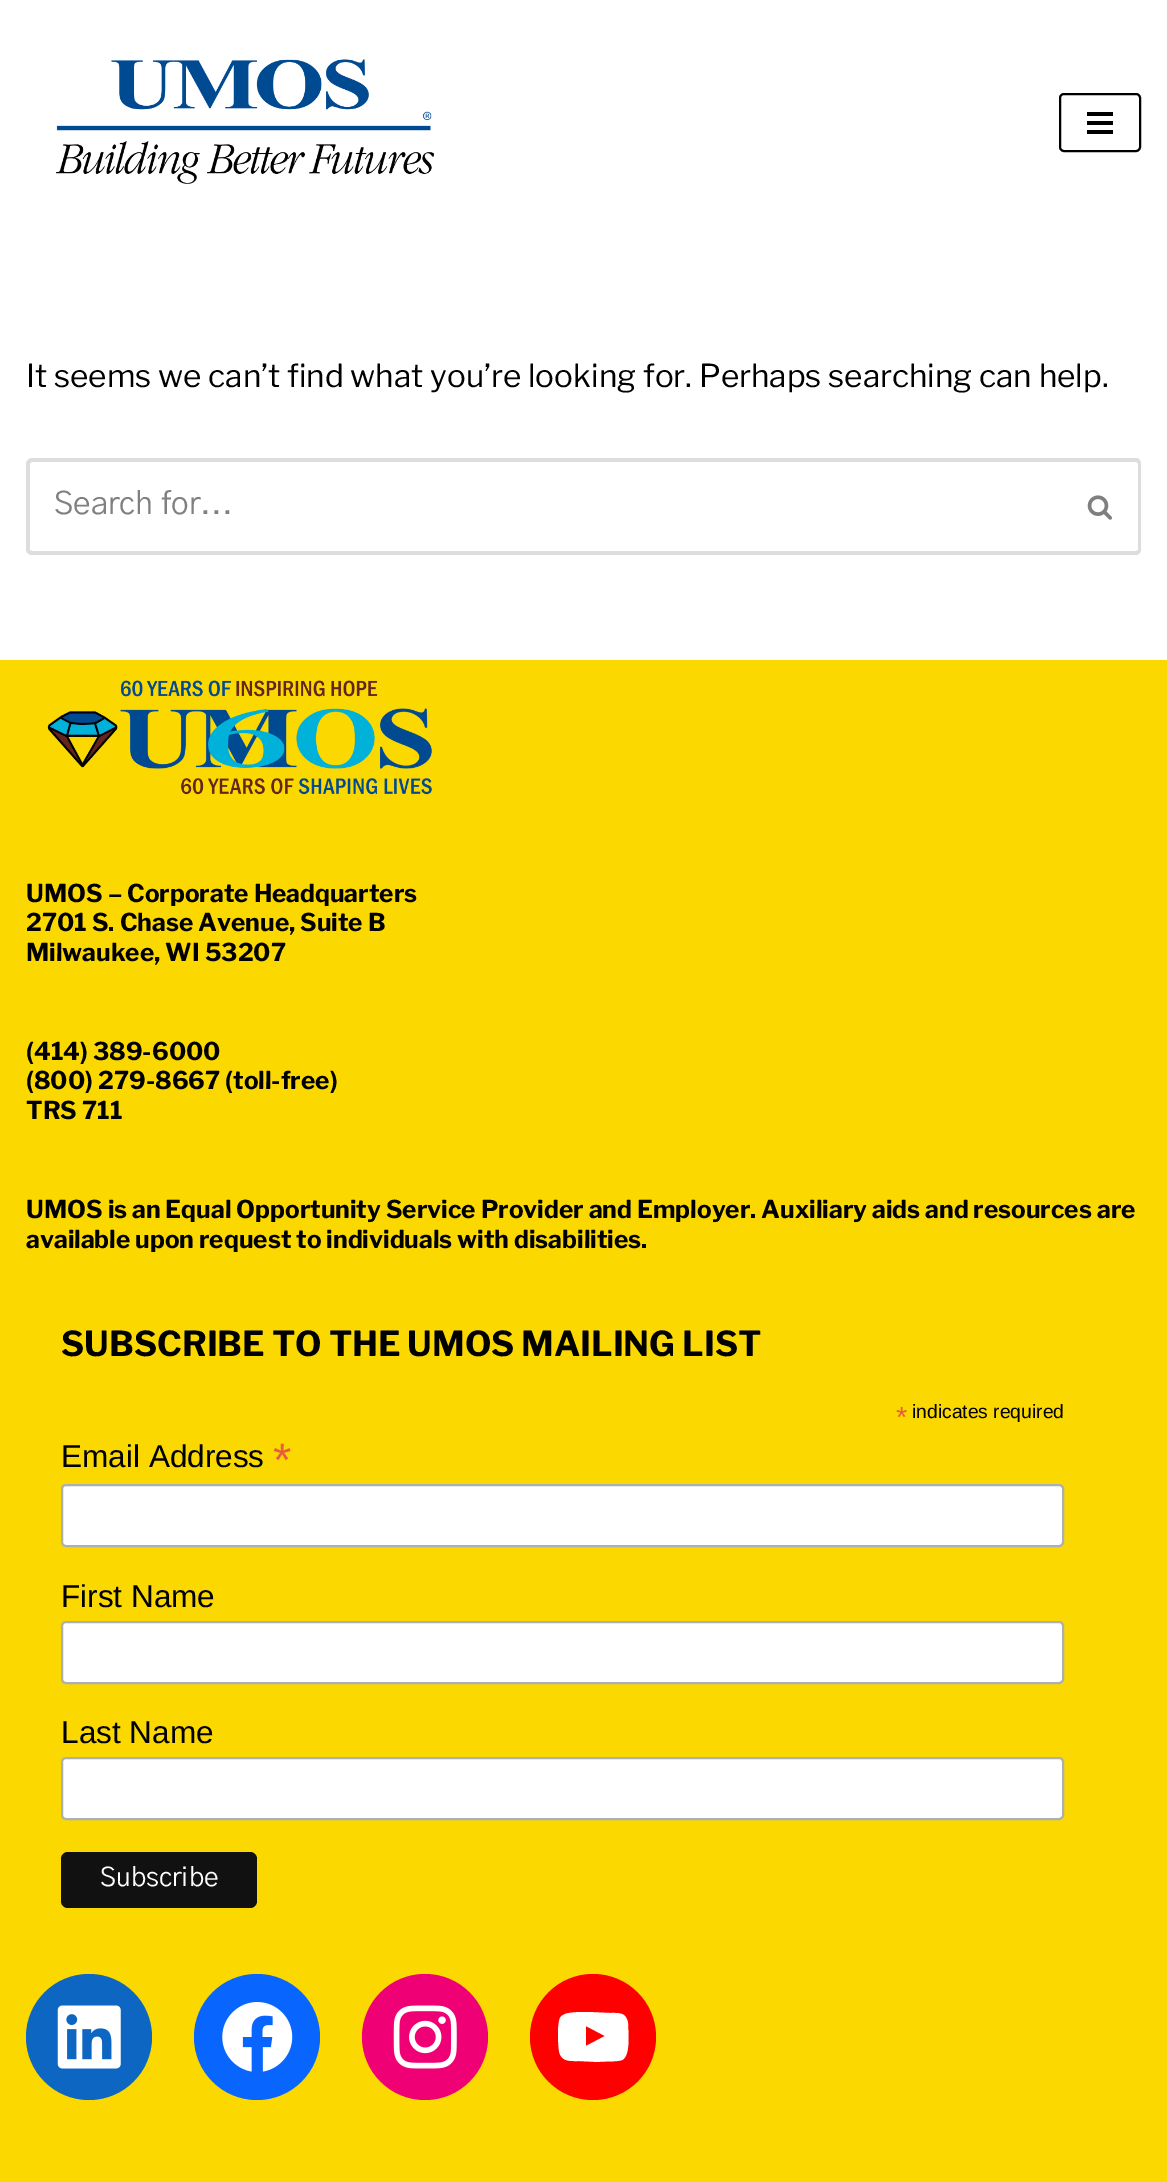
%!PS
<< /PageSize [1167 2182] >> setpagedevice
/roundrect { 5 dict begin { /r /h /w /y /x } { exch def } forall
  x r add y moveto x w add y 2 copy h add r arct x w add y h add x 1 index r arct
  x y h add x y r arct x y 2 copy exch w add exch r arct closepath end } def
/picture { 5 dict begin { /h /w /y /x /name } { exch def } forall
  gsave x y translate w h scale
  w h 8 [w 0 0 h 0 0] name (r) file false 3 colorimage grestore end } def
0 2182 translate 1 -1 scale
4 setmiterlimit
1 setgray
0 0 1167 2182 rectfill
(img1.rgb) 56 59 378 125 picture
0 setgray
2 setlinewidth
1060 94 80 57 4 roundrect stroke
1087 112 26 4 rectfill
1087 121 26 4 rectfill
1087 130 26 4 rectfill
/LibreFranklin-Regular [31.5 0 0 -31.5 0 0] selectfont
26 387 moveto (It seems we can’t find what you’re looking for. Perhaps searching can help.) show
0.867 setgray
newpath 32 458 moveto 1062 458 lineto 1062 555 lineto 32 555 lineto 29 555 26 552 26 550 curveto 26 464 lineto 26 461 29 458 32 458 curveto closepath 32 462 moveto 1062 462 lineto 1062 551 lineto 32 551 lineto 31 551 30 550 30 550 curveto 30 464 lineto 30 463 31 462 32 462 curveto closepath eofill
/GothicA1-Regular [31.5 0 0 -31.5 0 0] selectfont
0.502 setgray
54 514 moveto (Search for...) show
0.867 setgray
newpath 1062 458 moveto 1136 458 lineto 1139 458 1141 461 1141 464 curveto 1141 550 lineto 1141 552 1139 555 1136 555 curveto 1062 555 lineto closepath 1062 462 moveto 1136 462 lineto 1137 462 1138 463 1138 464 curveto 1138 550 lineto 1138 550 1137 551 1136 551 curveto 1062 551 lineto closepath eofill
(img2.rgb) 1087 495 25 25 picture
0.984 0.847 0 setrgbcolor
0 660 1167 1522 rectfill
(img3.rgb) 47 680 385 115 picture
/LibreFranklin-Bold [24.5 0 0 -24.5 0 0] selectfont
0 setgray
26 902 moveto (UMOS – Corporate Headquarters) show
26 931 moveto (2701 S. Chase Avenue, Suite B) show
26 961 moveto (Milwaukee, WI 53207) show
26 1060 moveto (\(414\) 389-6000) show
26 1089 moveto (\(800\) 279-8667 \(toll-free\)) show
26 1119 moveto (TRS 711) show
26 1218 moveto (UMOS is an Equal Opportunity Service Provider and Employer. Auxiliary aids and resources are) show
26 1248 moveto (available upon request to individuals with disabilities.) show
/LibreFranklin-Bold [34.3 0 0 -34.3 0 0] selectfont
61 1356 moveto (SUBSCRIBE TO THE UMOS MAILING LIST) show
/LiberationSans-Regular [29 0 0 -29 0 0] selectfont
0.91 0.361 0.255 setrgbcolor
896 1427 moveto (*) show
/LiberationSans-Regular [19.25 0 0 -19.25 0 0] selectfont
0 setgray
912 1418 moveto (indicates required) show
/LiberationSans-Regular [31.5 0 0 -31.5 0 0] selectfont
61 1467 moveto (Email Address) show
/LiberationSans-Regular [47 0 0 -47 0 0] selectfont
0.91 0.361 0.255 setrgbcolor
273 1476 moveto (*) show
1 setgray
62 1485 1001 61 4 roundrect gsave fill grestore
0.671 0.69 0.698 setrgbcolor
stroke
/LiberationSans-Regular [31.5 0 0 -31.5 0 0] selectfont
0 setgray
61 1607 moveto (First Name) show
1 setgray
62 1622 1001 61 4 roundrect gsave fill grestore
0.671 0.69 0.698 setrgbcolor
stroke
0 setgray
61 1743 moveto (Last Name) show
1 setgray
62 1758 1001 61 4 roundrect gsave fill grestore
0.671 0.69 0.698 setrgbcolor
stroke
0.067 setgray
61 1852 196 56 7 roundrect fill
/GothicA1-Regular [26.25 0 0 -26.25 0 0] selectfont
1 setgray
100 1886 moveto (Subscribe) show
0.051 0.4 0.761 setrgbcolor
newpath 89 2037 63 0 360 arc closepath fill
(img4.rgb) 57 2005 64 64 picture
0.031 0.4 1 setrgbcolor
newpath 257 2037 63 0 360 arc closepath fill
(img5.rgb) 222 2002 71 70 picture
0.941 0 0.459 setrgbcolor
newpath 425 2037 63 0 360 arc closepath fill
(img6.rgb) 393 2005 64 64 picture
1 0 0 setrgbcolor
newpath 593 2037 63 0 360 arc closepath fill
1 setgray
newpath 628 2023 moveto 626 2012 619 2013 610 2013 curveto 588 2012 lineto 582 2012 570 2012 565 2014 curveto 563 2015 561 2016 560 2018 curveto 557 2025 558 2043 559 2051 curveto 561 2062 570 2061 579 2061 curveto 598 2062 lineto 604 2061 617 2062 622 2060 curveto 631 2056 628 2031 628 2023 curveto closepath 586 2046 moveto 586 2026 lineto 605 2036 lineto closepath fill
showpage
